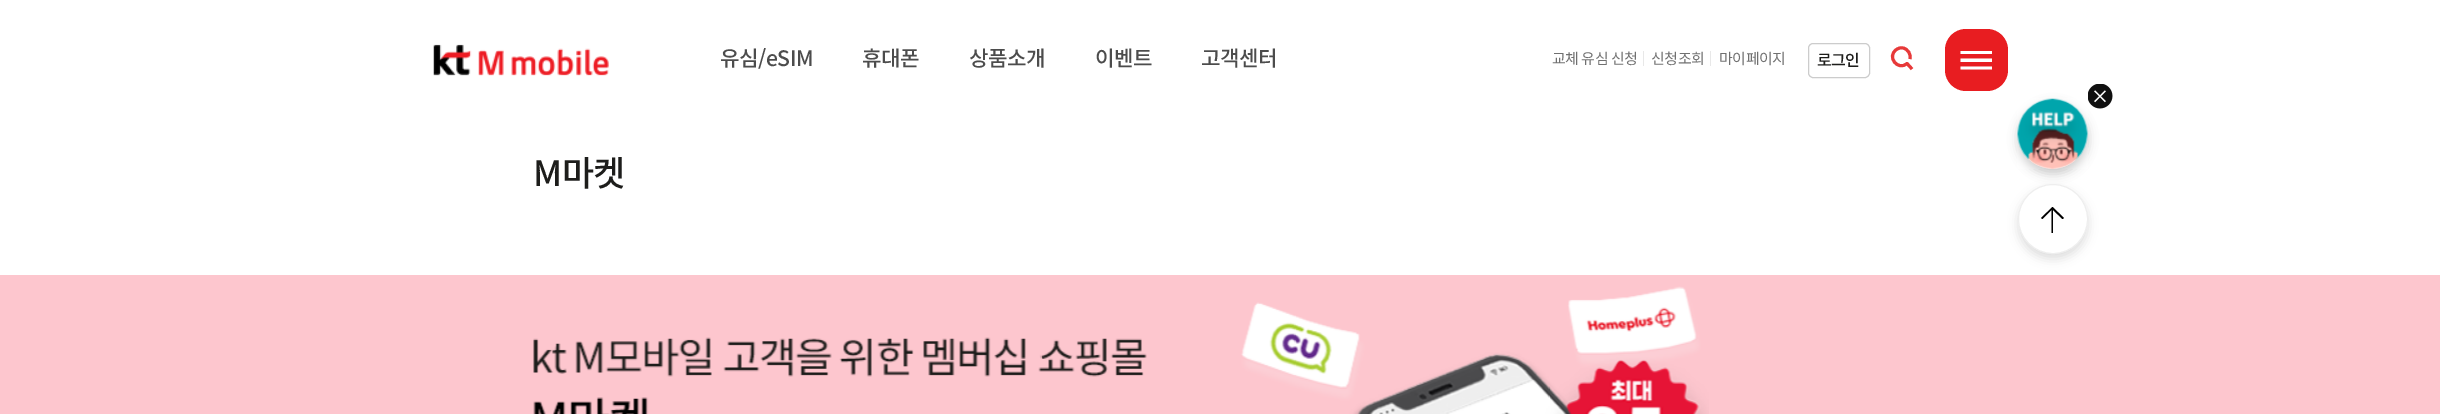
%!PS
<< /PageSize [2440 414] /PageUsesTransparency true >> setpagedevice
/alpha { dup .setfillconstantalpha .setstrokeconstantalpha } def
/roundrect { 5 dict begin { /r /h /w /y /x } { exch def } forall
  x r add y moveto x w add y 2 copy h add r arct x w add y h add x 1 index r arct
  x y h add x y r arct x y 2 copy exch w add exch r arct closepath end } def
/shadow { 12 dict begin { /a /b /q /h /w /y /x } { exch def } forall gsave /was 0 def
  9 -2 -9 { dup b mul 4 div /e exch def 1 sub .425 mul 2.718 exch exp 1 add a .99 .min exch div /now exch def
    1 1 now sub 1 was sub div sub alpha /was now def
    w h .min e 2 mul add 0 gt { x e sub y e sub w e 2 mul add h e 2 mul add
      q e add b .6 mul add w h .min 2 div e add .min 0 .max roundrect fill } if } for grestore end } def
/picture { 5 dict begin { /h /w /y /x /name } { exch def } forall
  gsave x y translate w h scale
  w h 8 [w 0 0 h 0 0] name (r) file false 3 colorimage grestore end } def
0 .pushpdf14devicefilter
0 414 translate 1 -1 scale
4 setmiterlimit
1 setgray
0 0 2440 414 rectfill
(img1.rgb) 433 44 176 32 picture
/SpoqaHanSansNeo-Medium [21.25 0 0 -21.25 0 0] selectfont
0.298 setgray
720 66 moveto -0.5 0 (유심/eSIM) ashow
862 66 moveto -0.5 0 (휴대폰) ashow
969 66 moveto -0.5 0 (상품소개) ashow
1095 66 moveto -0.5 0 (이벤트) ashow
1201 66 moveto -0.5 0 (고객센터) ashow
/SpoqaHanSansNeo-Regular [15 0 0 -15 0 0] selectfont
0.439 setgray
1552 64 moveto -0.5 0 (교체 유심 신청) ashow
0.91 setgray
1643 51 1 15 rectfill
0.439 setgray
1651 64 moveto -0.5 0 (신청조회) ashow
0.91 setgray
1710 51 1 15 rectfill
0.439 setgray
1719 64 moveto -0.5 0 (마이페이지) ashow
0.8 setgray
1808.5 43.5 61 34 4.5 roundrect stroke
/SpoqaHanSansNeo-Medium [16 0 0 -16 0 0] selectfont
0.114 0.114 0.106 setrgbcolor
1817 66 moveto -0.5 0 (로그인) ashow
0.906 0.224 0.224 setrgbcolor
3 setlinewidth
1 setlinejoin
newpath 1910 59 moveto 1911 54 1908 49 1903 48 curveto 1900.5 47.5 1898.5 48 1896.5 49.5 curveto 1886 56.5 1898 71.5 1907 63.5 curveto 1912 69 lineto stroke
0.91 0.114 0.129 setrgbcolor
1945 29 63 62 21 roundrect fill
1 setgray
newpath 1992 66.5 moveto 1992 69.5 lineto 1960.5 69.5 lineto 1960.5 66.5 lineto closepath 1992 58.5 moveto 1992 62 lineto 1960.5 62 lineto 1960.5 58.5 lineto closepath 1992 51 moveto 1992 54 lineto 1960.5 54 lineto 1960.5 51 lineto closepath eofill
/SpoqaHanSansNeo-Medium [35 0 0 -35 0 0] selectfont
0.114 0.114 0.106 setrgbcolor
533 186 moveto -0.5 0 (M마켓) ashow
0.992 0.776 0.808 setrgbcolor
0 275 2440 139 rectfill
(img2.rgb) 533 286 1176 128 picture
(img3.rgb) 2088 84 25 25 picture
gsave
newpath 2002 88 moveto 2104 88 lineto 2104 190 lineto 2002 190 lineto closepath 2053 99 moveto 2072.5 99 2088 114.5 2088 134 curveto 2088 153.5 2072.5 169 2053 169 curveto 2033.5 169 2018 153.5 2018 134 curveto 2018 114.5 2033.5 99 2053 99 curveto closepath eoclip newpath
0 setgray
2018 104 70 70 35 5 0.2 shadow
grestore
(img4.rgb) 2017 98 71 71 picture
0 setgray
2018 189 70 70 35 5 0.12 shadow
1 setgray
newpath 2053 219 34.5 0 360 arc closepath gsave fill grestore
0.933 setgray
1 setlinewidth
0 setlinejoin
stroke
0 setgray
newpath 2064 218 moveto 2052.5 207 lineto 2041 218 lineto 2042.5 219 lineto 2051.5 210 lineto 2051.5 233 lineto 2053 233 lineto 2053 210 lineto 2062.5 219 lineto closepath fill
.poppdf14devicefilter showpage
